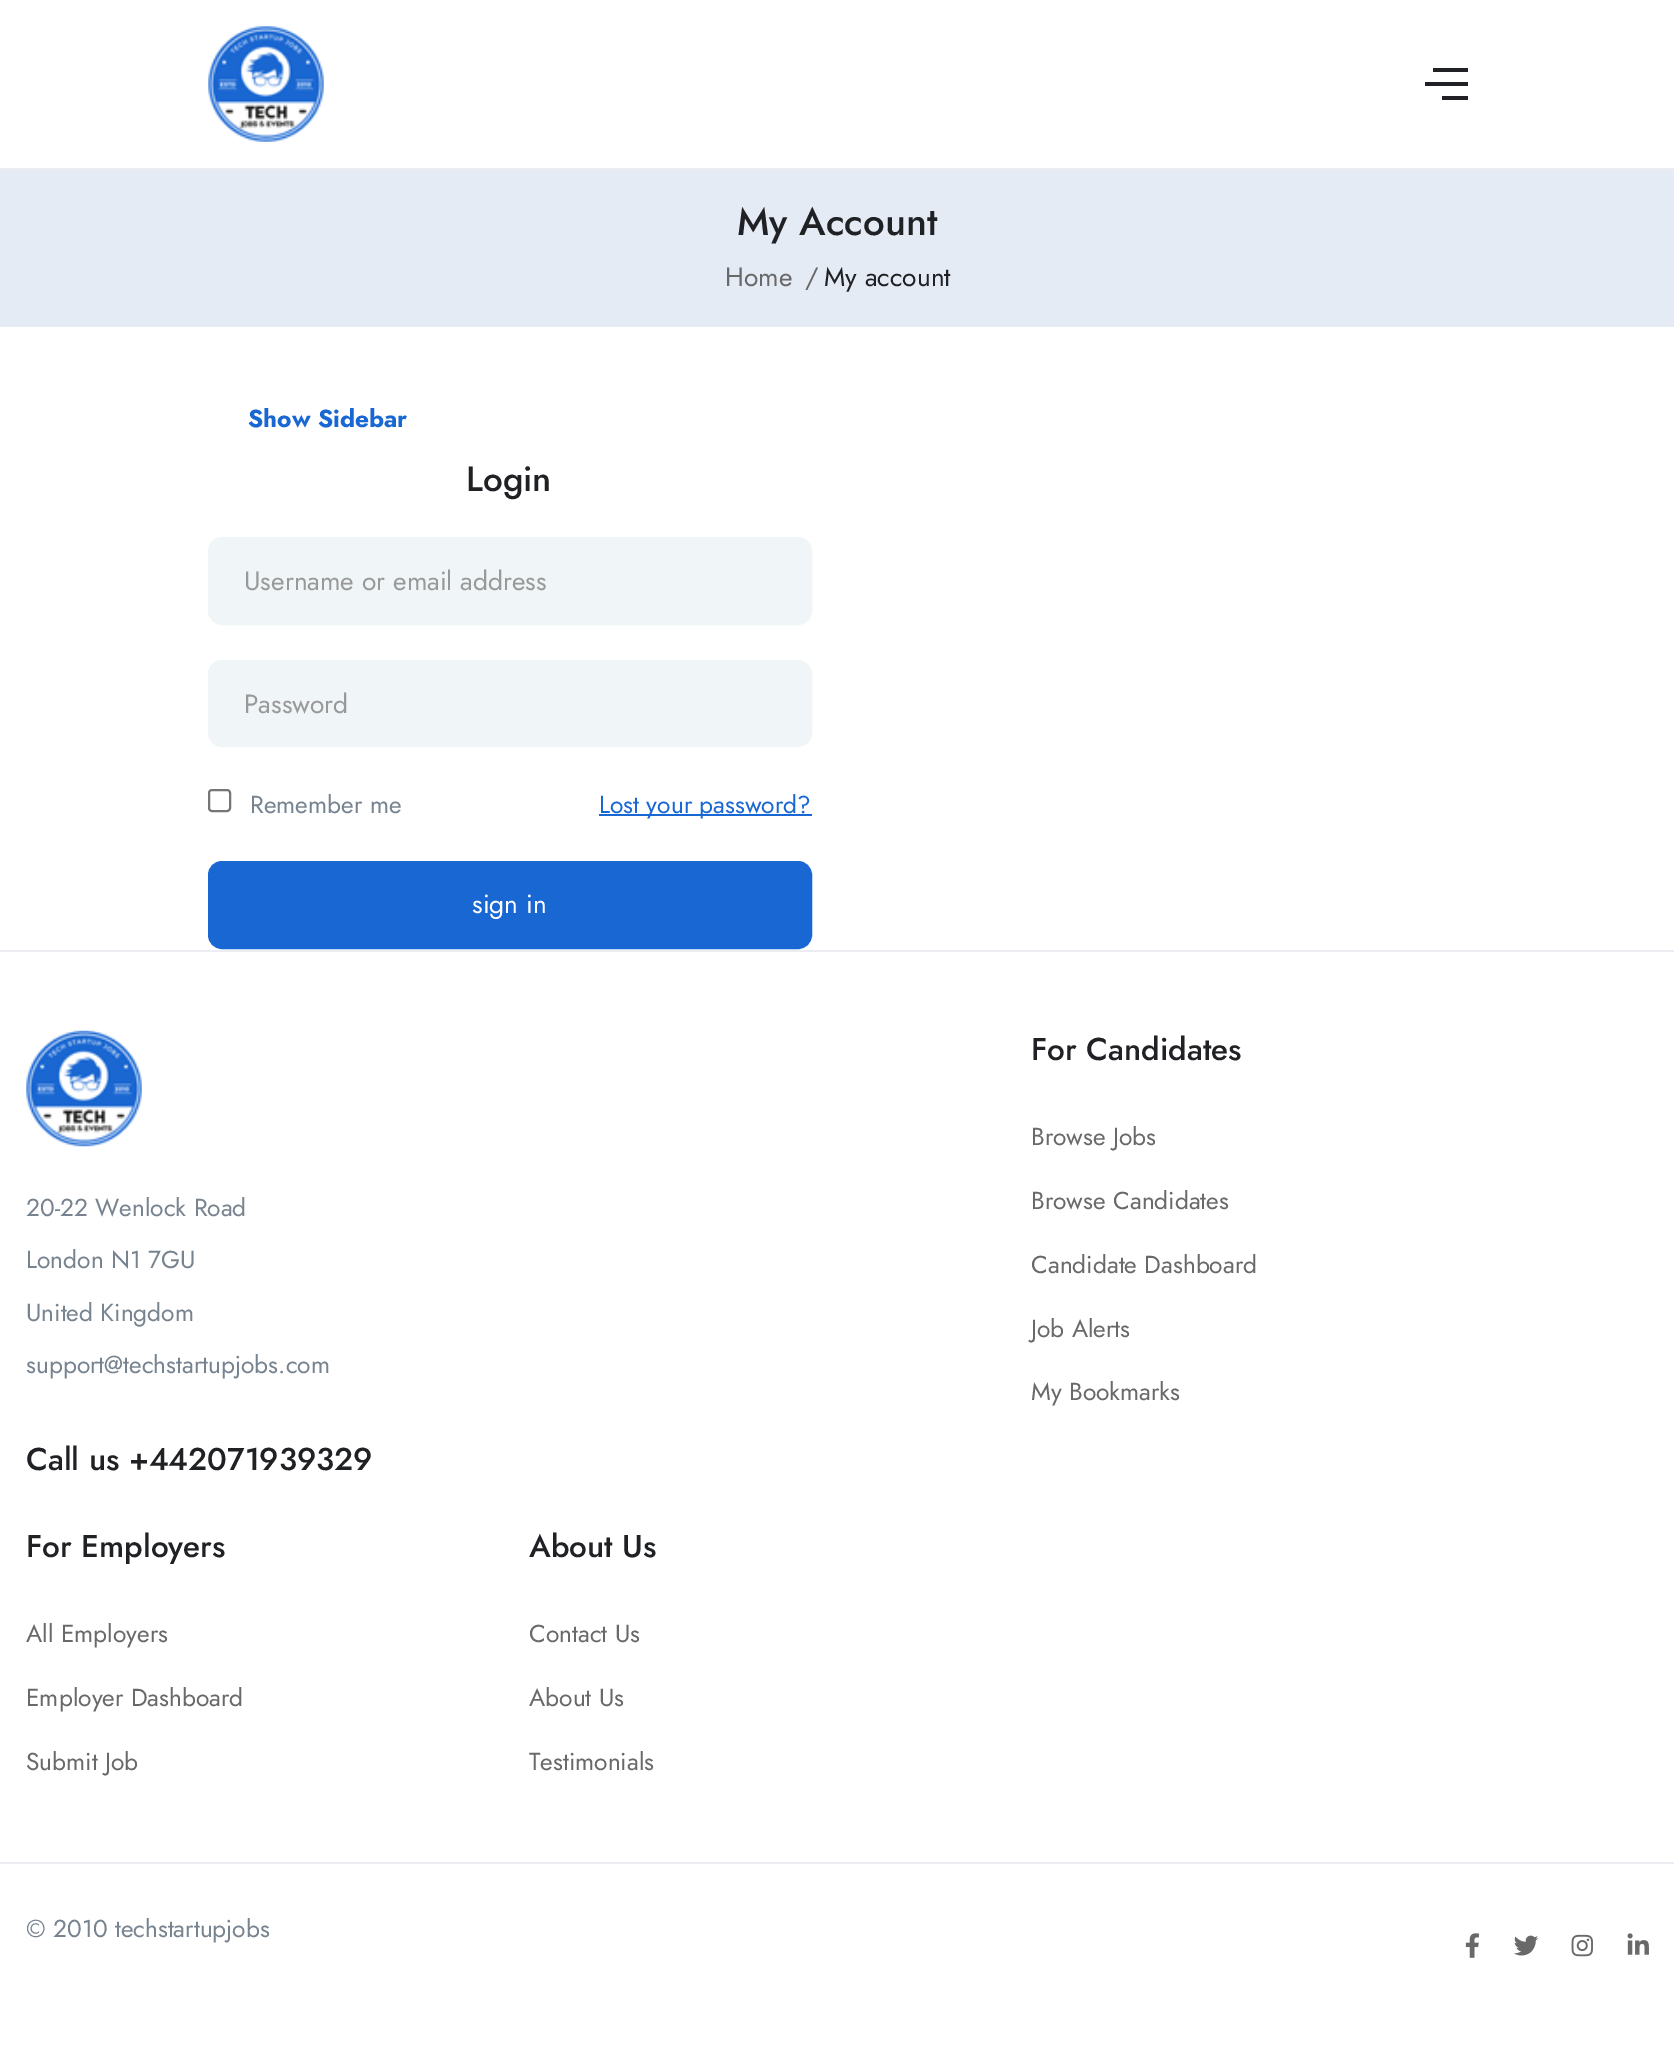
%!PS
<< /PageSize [1674 2052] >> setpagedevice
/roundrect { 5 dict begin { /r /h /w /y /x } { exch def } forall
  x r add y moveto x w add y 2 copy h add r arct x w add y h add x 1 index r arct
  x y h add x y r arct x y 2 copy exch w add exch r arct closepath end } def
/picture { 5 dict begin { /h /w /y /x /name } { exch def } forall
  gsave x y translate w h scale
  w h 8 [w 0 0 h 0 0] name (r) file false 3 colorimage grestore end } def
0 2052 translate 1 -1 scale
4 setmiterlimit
1 setgray
0 0 1674 2052 rectfill
0.925 0.929 0.949 setrgbcolor
0 168 1674 2 rectfill
(img1.rgb) 208 26 116 116 picture
0.125 0.129 0.141 setrgbcolor
1433 68 35 4 rectfill
1425 82 43 4 rectfill
1442 96 26 4 rectfill
0.898 0.922 0.961 setrgbcolor
0 170 1674 157 rectfill
/Jost-Medium [38.5 0 0 -38.5 0 0] selectfont
0.125 0.129 0.141 setrgbcolor
737 235 moveto (My Account) show
/Jost-Regular [26.25 0 0 -26.25 0 0] selectfont
0.412 setgray
725 286 moveto (Home) show
805 286 moveto (/) show
0.125 0.129 0.141 setrgbcolor
824 286 moveto (My account) show
/Jost-Bold [24.5 0 0 -24.5 0 0] selectfont
0.098 0.404 0.824 setrgbcolor
248 427 moveto (Show Sidebar) show
/Jost-Medium [35 0 0 -35 0 0] selectfont
0.125 0.129 0.141 setrgbcolor
466 491 moveto (Login) show
0.941 0.961 0.969 setrgbcolor
209 538 602 86 13 roundrect gsave fill grestore
2 setlinewidth
stroke
/Jost-Regular [26.25 0 0 -26.25 0 0] selectfont
0.6 setgray
244 590 moveto (Username or email address) show
0.941 0.961 0.969 setrgbcolor
209 661 602 85 13 roundrect gsave fill grestore
stroke
0.6 setgray
244 713 moveto (Password) show
0.463 setgray
209 790 21 21 3 roundrect stroke
/Jost-Regular [24.5 0 0 -24.5 0 0] selectfont
0.467 0.514 0.561 setrgbcolor
250 813 moveto (Remember me) show
0.098 0.404 0.824 setrgbcolor
599 814 213 2 rectfill
599 813 moveto (Lost your password?) show
209 862 602 86 13 roundrect gsave fill grestore
stroke
/Jost-Regular [26.25 0 0 -26.25 0 0] selectfont
1 setgray
472 913 moveto (sign in) show
0.925 0.929 0.949 setrgbcolor
0 950 1674 2 rectfill
(img2.rgb) 26 1030 116 117 picture
/Jost-Regular [24.5 0 0 -24.5 0 0] selectfont
0.467 0.514 0.561 setrgbcolor
26 1216 moveto (20-22 Wenlock Road) show
26 1268 moveto (London N1 7GU) show
26 1321 moveto (United Kingdom) show
26 1373 moveto (support@techstartupjobs.com) show
/Jost-Medium [31.5 0 0 -31.5 0 0] selectfont
0.125 0.129 0.141 setrgbcolor
26 1470 moveto (Call us +442071939329) show
1031 1060 moveto (For Candidates) show
/Jost-Regular [24.5 0 0 -24.5 0 0] selectfont
0.412 setgray
1031 1145 moveto (Browse Jobs) show
1031 1209 moveto (Browse Candidates) show
1031 1273 moveto (Candidate Dashboard) show
1031 1337 moveto (Job Alerts) show
1031 1400 moveto (My Bookmarks) show
/Jost-Medium [31.5 0 0 -31.5 0 0] selectfont
0.125 0.129 0.141 setrgbcolor
26 1557 moveto (For Employers) show
/Jost-Regular [24.5 0 0 -24.5 0 0] selectfont
0.412 setgray
26 1642 moveto (All Employers) show
26 1706 moveto (Employer Dashboard) show
26 1770 moveto (Submit Job) show
/Jost-Medium [31.5 0 0 -31.5 0 0] selectfont
0.125 0.129 0.141 setrgbcolor
529 1557 moveto (About Us) show
/Jost-Regular [24.5 0 0 -24.5 0 0] selectfont
0.412 setgray
529 1642 moveto (Contact Us) show
529 1706 moveto (About Us) show
529 1770 moveto (Testimonials) show
0.925 0.929 0.949 setrgbcolor
0 1862 1674 2 rectfill
0.467 0.514 0.561 setrgbcolor
26 1937 moveto (© 2010 techstartupjobs) show
(img3.rgb) 1465 1933 14 25 picture
(img4.rgb) 1514 1935 25 21 picture
(img5.rgb) 1571 1934 22 23 picture
(img6.rgb) 1627 1933 22 22 picture
showpage
